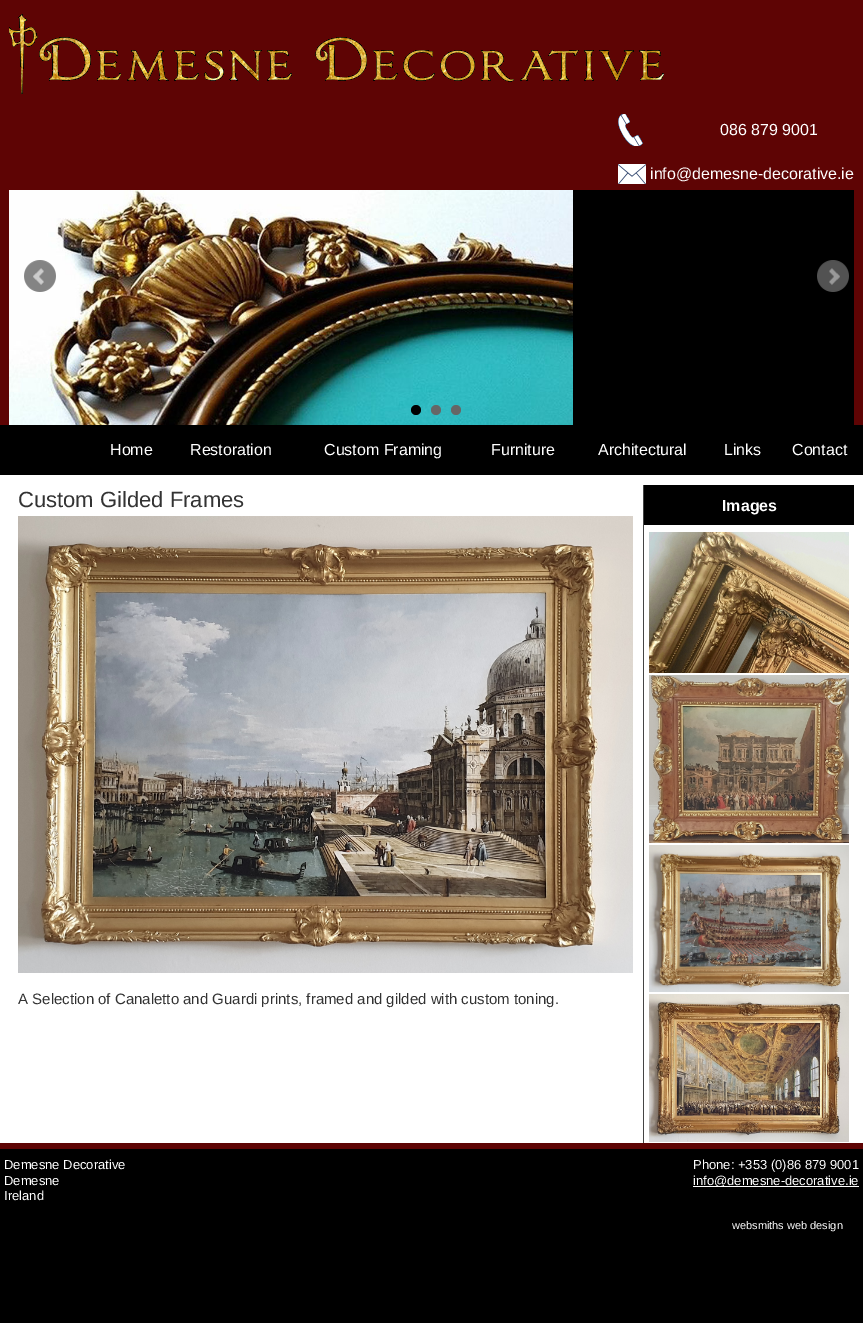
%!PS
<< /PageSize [863 1323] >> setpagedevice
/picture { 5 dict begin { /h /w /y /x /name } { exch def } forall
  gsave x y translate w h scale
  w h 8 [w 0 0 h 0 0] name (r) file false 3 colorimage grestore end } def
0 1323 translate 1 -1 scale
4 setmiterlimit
0 setgray
0 0 863 1323 rectfill
0.369 0.016 0.016 setrgbcolor
0 0 863 425 rectfill
(img1.rgb) 9 14 655 80 picture
(img2.rgb) 618 114 25 32 picture
/LiberationSans-Regular [16 0 0 -16 0 0] selectfont
1 setgray
720 135 moveto (086 879 9001) show
(img3.rgb) 618 164 28 20 picture
650 179 moveto (info@demesne-decorative.ie) show
0 setgray
573 190 281 235 rectfill
(img4.rgb) 9 190 564 235 picture
(img5.rgb) 24 260 32 32 picture
(img6.rgb) 817 260 32 32 picture
newpath 416 410 5 0 360 arc closepath fill
0.4 setgray
newpath 436 410 5 0 360 arc closepath fill
newpath 456 410 5 0 360 arc closepath fill
1 setgray
110 455 moveto (Home) show
190 455 moveto (Restoration) show
324 455 moveto (Custom Framing) show
491 455 moveto (Furniture) show
598 455 moveto (Architectural) show
724 455 moveto (Links) show
792 455 moveto (Contact) show
0 475 863 668 rectfill
/LiberationSans-Regular [22 0 0 -22 0 0] selectfont
0.2 setgray
18 507 moveto (Custom Gilded Frames) show
(img7.rgb) 18 516 615 457 picture
/LiberationSans-Regular [15 0 0 -15 0 0] selectfont
18 1004 moveto (A Selection of Canaletto and Guardi prints, framed and gilded with custom toning.) show
0.267 setgray
643 485 1 658 rectfill
0 setgray
644 485 210 40 rectfill
/LiberationSans-Bold [16 0 0 -16 0 0] selectfont
1 setgray
722 511 moveto (Images) show
(img8.rgb) 649 532 200 141 picture
(img9.rgb) 649 675 200 168 picture
(img10.rgb) 649 845 200 147 picture
(img11.rgb) 649 994 200 148 picture
0.369 0.016 0.016 setrgbcolor
0 1143 863 6 rectfill
/LiberationSans-Regular [13 0 0 -13 0 0] selectfont
1 setgray
4 1169 moveto (Demesne Decorative) show
4 1185 moveto (Demesne) show
4 1200 moveto (Ireland) show
693 1169 moveto (Phone: +353 \(0\)86 879 9001) show
693 1186 166 1 rectfill
693 1185 moveto (info@demesne-decorative.ie) show
/LiberationSans-Regular [11 0 0 -11 0 0] selectfont
732 1229 moveto (websmiths web design) show
showpage
